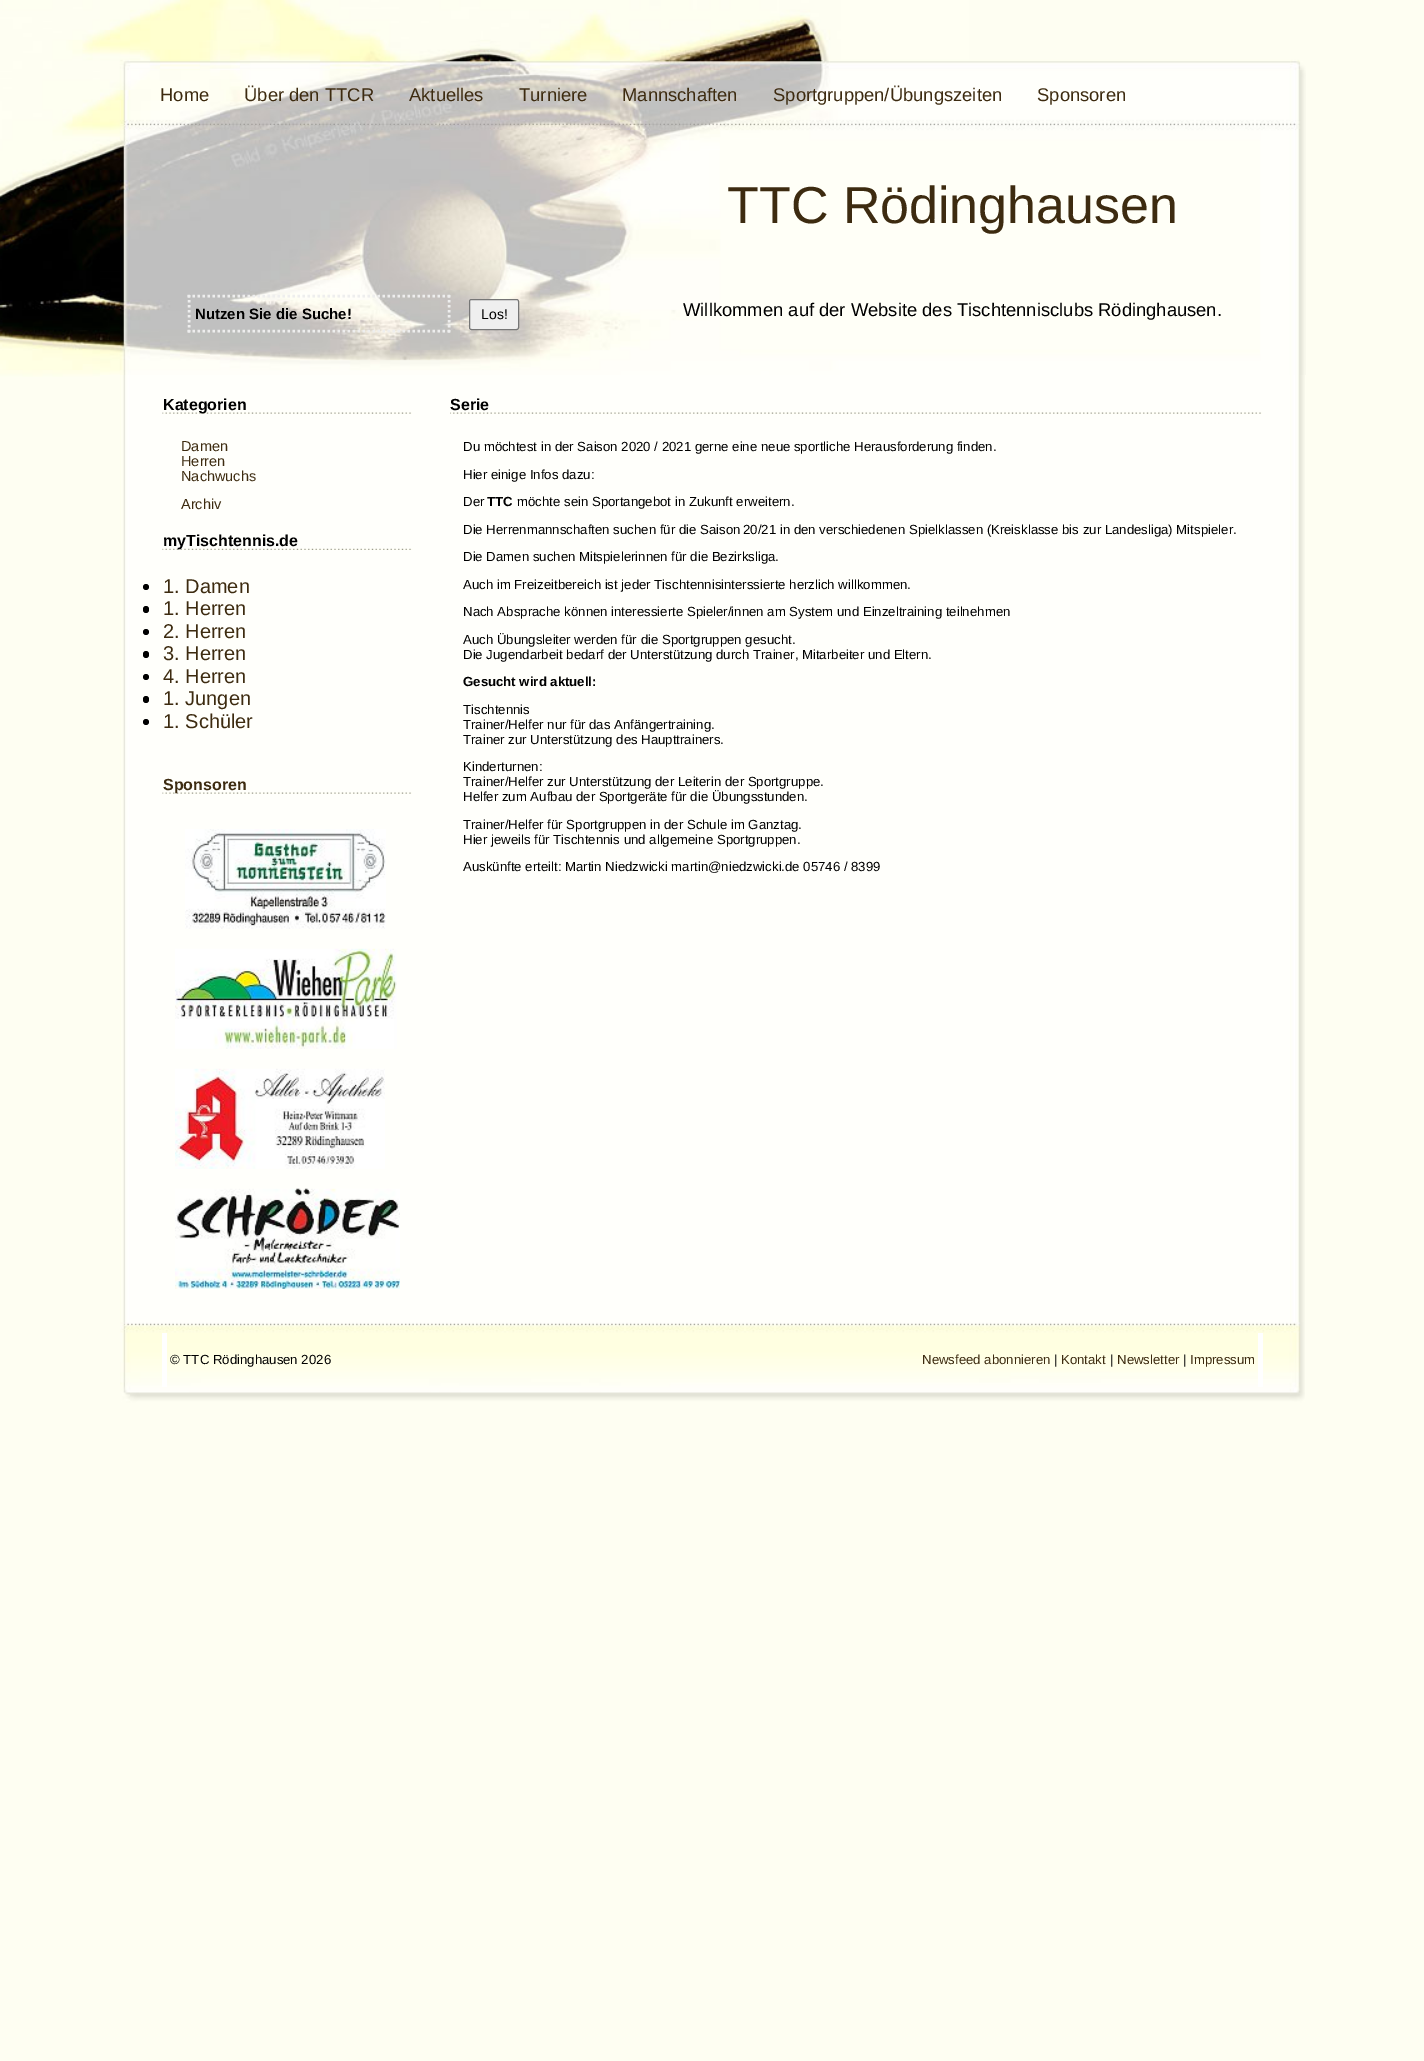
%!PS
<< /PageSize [1424 2061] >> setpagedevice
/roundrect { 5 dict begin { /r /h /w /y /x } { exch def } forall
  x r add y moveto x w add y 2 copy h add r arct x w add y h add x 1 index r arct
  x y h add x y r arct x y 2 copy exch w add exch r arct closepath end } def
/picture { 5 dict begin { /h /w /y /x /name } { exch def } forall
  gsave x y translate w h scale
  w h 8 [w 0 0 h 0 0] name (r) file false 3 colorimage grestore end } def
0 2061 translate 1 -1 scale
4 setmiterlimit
0.996 0.996 0.949 setrgbcolor
0 0 1424 2061 rectfill
(img1.rgb) 0 0 100 377 picture
(img2.rgb) 100 375 1205 1040 picture
(img3.rgb) 100 0 1206 375 picture
/LiberationSans-Regular [18.4 0 0 -18.4 0 0] selectfont
0.239 0.169 0.063 setrgbcolor
160 101 moveto (Home) show
244 101 moveto (Über den TTCR) show
409 101 moveto (Aktuelles) show
519 101 moveto (Turniere) show
622 101 moveto (Mannschaften) show
773 101 moveto (Sportgruppen/Übungszeiten) show
1037 101 moveto (Sponsoren) show
/LiberationSans-Regular [52 0 0 -52 0 0] selectfont
727 223 moveto (TTC Rödinghausen) show
0.933 setgray
2.5 setlinewidth
[2.5 2.5] 0 setdash
newpath 187.5 296 moveto 450 296 lineto stroke
newpath 449 295 moveto 449 332.5 lineto stroke
newpath 187.5 331 moveto 450 331 lineto stroke
newpath 189 295 moveto 189 332.5 lineto stroke
/LiberationSans-Bold [15 0 0 -15 0 0] selectfont
0 setgray
195 319 moveto (Nutzen Sie die Suche!) show
0.937 setgray
469.5 299.5 49 30 2 roundrect gsave fill grestore
0.463 setgray
1 setlinewidth
[] 0 setdash
stroke
/LiberationSans-Regular [14 0 0 -14 0 0] selectfont
0 setgray
481 319 moveto (Los!) show
/LiberationSans-Regular [18.4 0 0 -18.4 0 0] selectfont
683 316 moveto (Willkommen auf der Website des Tischtennisclubs Rödinghausen.) show
(img4.rgb) 162 412 250 2 picture
/LiberationSans-Bold [16 0 0 -16 0 0] selectfont
163 410 moveto (Kategorien) show
/LiberationSans-Regular [14.5 0 0 -14.5 0 0] selectfont
0.239 0.169 0.063 setrgbcolor
181 451 moveto (Damen) show
181 466 moveto (Herren) show
181 481 moveto (Nachwuchs) show
181 509 moveto (Archiv) show
(img5.rgb) 162 548 251 2 picture
/LiberationSans-Bold [16 0 0 -16 0 0] selectfont
0 setgray
163 546 moveto (myTischtennis.de) show
newpath 146 587 3 0 360 arc closepath fill
/LiberationSans-Regular [20 0 0 -20 0 0] selectfont
0.239 0.169 0.063 setrgbcolor
163 593 moveto (1. Damen) show
0 setgray
143 606 6 7 3 roundrect fill
0.239 0.169 0.063 setrgbcolor
163 615 moveto (1. Herren) show
0 setgray
newpath 146 632 3 0 360 arc closepath fill
0.239 0.169 0.063 setrgbcolor
163 638 moveto (2. Herren) show
0 setgray
143 651 6 7 3 roundrect fill
0.239 0.169 0.063 setrgbcolor
163 660 moveto (3. Herren) show
0 setgray
newpath 146 677 3 0 360 arc closepath fill
0.239 0.169 0.063 setrgbcolor
163 683 moveto (4. Herren) show
0 setgray
143 696 6 7 3 roundrect fill
0.239 0.169 0.063 setrgbcolor
163 705 moveto (1. Jungen) show
0 setgray
newpath 146 722 3 0 360 arc closepath fill
0.239 0.169 0.063 setrgbcolor
163 728 moveto (1. Schüler) show
(img4.rgb) 162 792 250 2 picture
/LiberationSans-Bold [16 0 0 -16 0 0] selectfont
163 790 moveto (Sponsoren) show
(img6.rgb) 185 829 201 100 picture
(img7.rgb) 175 948 222 101 picture
(img8.rgb) 175 1068 210 101 picture
(img9.rgb) 175 1188 225 101 picture
(img10.rgb) 450 412 812 2 picture
0 setgray
450 410 moveto (Serie) show
/LiberationSans-Regular [13.2 0 0 -13.2 0 0] selectfont
463 451 moveto (Du möchtest in der Saison 2020 / 2021 gerne eine neue sportliche Herausforderung finden.) show
463 479 moveto (Hier einige Infos dazu:) show
463 506 moveto (Der) show
/LiberationSans-Bold [13.2 0 0 -13.2 0 0] selectfont
487 506 moveto (TTC) show
/LiberationSans-Regular [13.2 0 0 -13.2 0 0] selectfont
517 506 moveto (möchte sein Sportangebot in Zukunft erweitern.) show
463 534 moveto (Die Herrenmannschaften suchen für die Saison) show
743 534 moveto (20/21 in den verschiedenen Spielklassen \(Kreisklasse bis zur Landesliga\) Mitspieler.) show
463 561 moveto (Die Damen suchen Mitspielerinnen für die Bezirksliga.) show
463 589 moveto (Auch im Freizeitbereich ist jeder Tischtennisinterssierte herzlich willkommen.) show
463 616 moveto (Nach Absprache können interessierte Spieler/innen am System und Einzeltraining teilnehmen) show
463 644 moveto (Auch Übungsleiter werden für die Sportgruppen gesucht.) show
463 659 moveto (Die Jugendarbeit bedarf der Unterstützung durch Trainer, Mitarbeiter und Eltern.) show
/LiberationSans-Bold [13.2 0 0 -13.2 0 0] selectfont
463 686 moveto (Gesucht wird aktuell:) show
/LiberationSans-Regular [13.2 0 0 -13.2 0 0] selectfont
463 714 moveto (Tischtennis) show
463 729 moveto (Trainer/Helfer nur für das Anfängertraining.) show
463 744 moveto (Trainer zur Unterstützung des Haupttrainers.) show
463 771 moveto (Kinderturnen:) show
463 786 moveto (Trainer/Helfer zur Unterstützung der Leiterin der Sportgruppe.) show
463 801 moveto (Helfer zum Aufbau der Sportgeräte für die Übungsstunden.) show
463 829 moveto (Trainer/Helfer für Sportgruppen in der Schule im Ganztag.) show
463 844 moveto (Hier jeweils für Tischtennis und allgemeine Sportgruppen.) show
463 871 moveto (Auskünfte erteilt: Martin Niedzwicki martin@niedzwicki.de 05746 / 8399) show
(img11.rgb) 120 1322 1185 93 picture
1 setgray
162 1333 5 54 rectfill
0 setgray
170 1364 moveto (© TTC Rödinghausen 2026) show
0.239 0.169 0.063 setrgbcolor
922 1364 moveto (Newsfeed abonnieren) show
0 setgray
1054 1364 moveto (|) show
0.239 0.169 0.063 setrgbcolor
1061 1364 moveto (Kontakt) show
0 setgray
1110 1364 moveto (|) show
0.239 0.169 0.063 setrgbcolor
1117 1364 moveto (Newsletter) show
0 setgray
1183 1364 moveto (|) show
0.239 0.169 0.063 setrgbcolor
1190 1364 moveto (Impressum) show
1 setgray
1258 1333 5 54 rectfill
showpage
